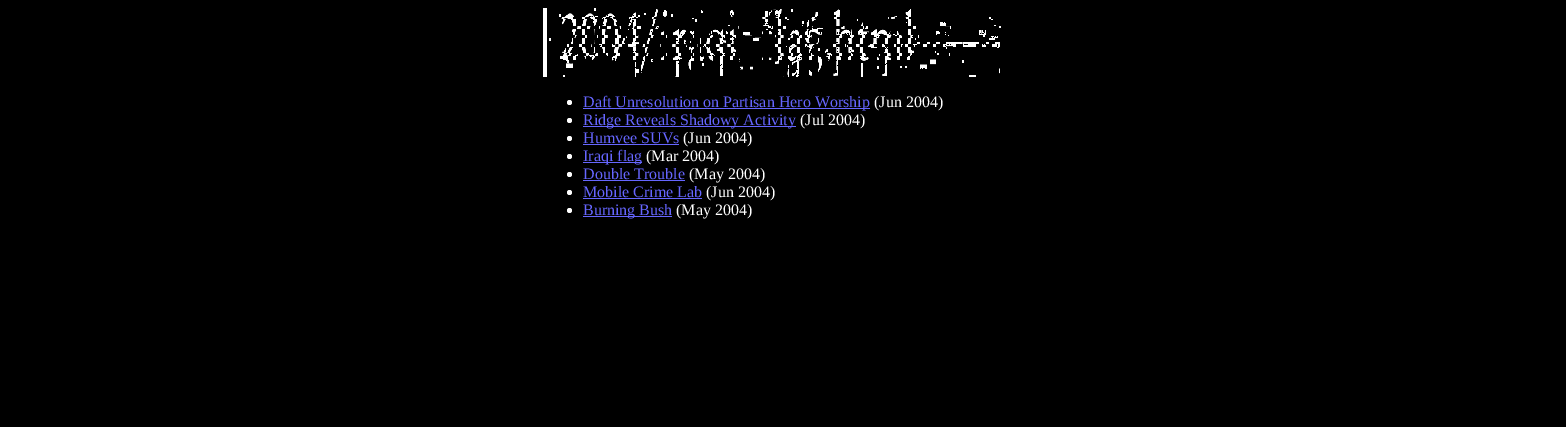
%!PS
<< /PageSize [1566 427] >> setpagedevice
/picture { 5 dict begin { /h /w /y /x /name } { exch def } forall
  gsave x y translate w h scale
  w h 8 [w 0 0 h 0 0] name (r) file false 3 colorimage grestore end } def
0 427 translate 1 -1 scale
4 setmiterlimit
0 setgray
0 0 1566 427 rectfill
(img1.rgb) 543 8 458 69 picture
1 setgray
newpath 569.5 102.5 2.5 0 360 arc closepath fill
0.4 0.4 1 setrgbcolor
583 108 287 1 rectfill
/LiberationSerif-Regular [16 0 0 -16 0 0] selectfont
583 107 moveto (Daft Unresolution on Partisan Hero Worship) show
1 setgray
874 107 moveto (\(Jun 2004\)) show
newpath 569.5 120.5 2.5 0 360 arc closepath fill
0.4 0.4 1 setrgbcolor
583 126 213 1 rectfill
583 125 moveto (Ridge Reveals Shadowy Activity) show
1 setgray
800 125 moveto (\(Jul 2004\)) show
newpath 569.5 138.5 2.5 0 360 arc closepath fill
0.4 0.4 1 setrgbcolor
583 143 moveto (Humvee SUVs) show
583 144 96 1 rectfill
1 setgray
683 143 moveto (\(Jun 2004\)) show
newpath 569.5 156.5 2.5 0 360 arc closepath fill
0.4 0.4 1 setrgbcolor
583 162 59 1 rectfill
583 161 moveto (Iraqi flag) show
1 setgray
646 161 moveto (\(Mar 2004\)) show
newpath 569.5 174.5 2.5 0 360 arc closepath fill
0.4 0.4 1 setrgbcolor
583 179 moveto (Double Trouble) show
583 180 102 1 rectfill
1 setgray
689 179 moveto (\(May 2004\)) show
newpath 569.5 192.5 2.5 0 360 arc closepath fill
0.4 0.4 1 setrgbcolor
583 197 moveto (Mobile Crime Lab) show
583 198 119 1 rectfill
1 setgray
706 197 moveto (\(Jun 2004\)) show
newpath 569.5 210.5 2.5 0 360 arc closepath fill
0.4 0.4 1 setrgbcolor
583 216 89 1 rectfill
583 215 moveto (Burning Bush) show
1 setgray
676 215 moveto (\(May 2004\)) show
showpage
